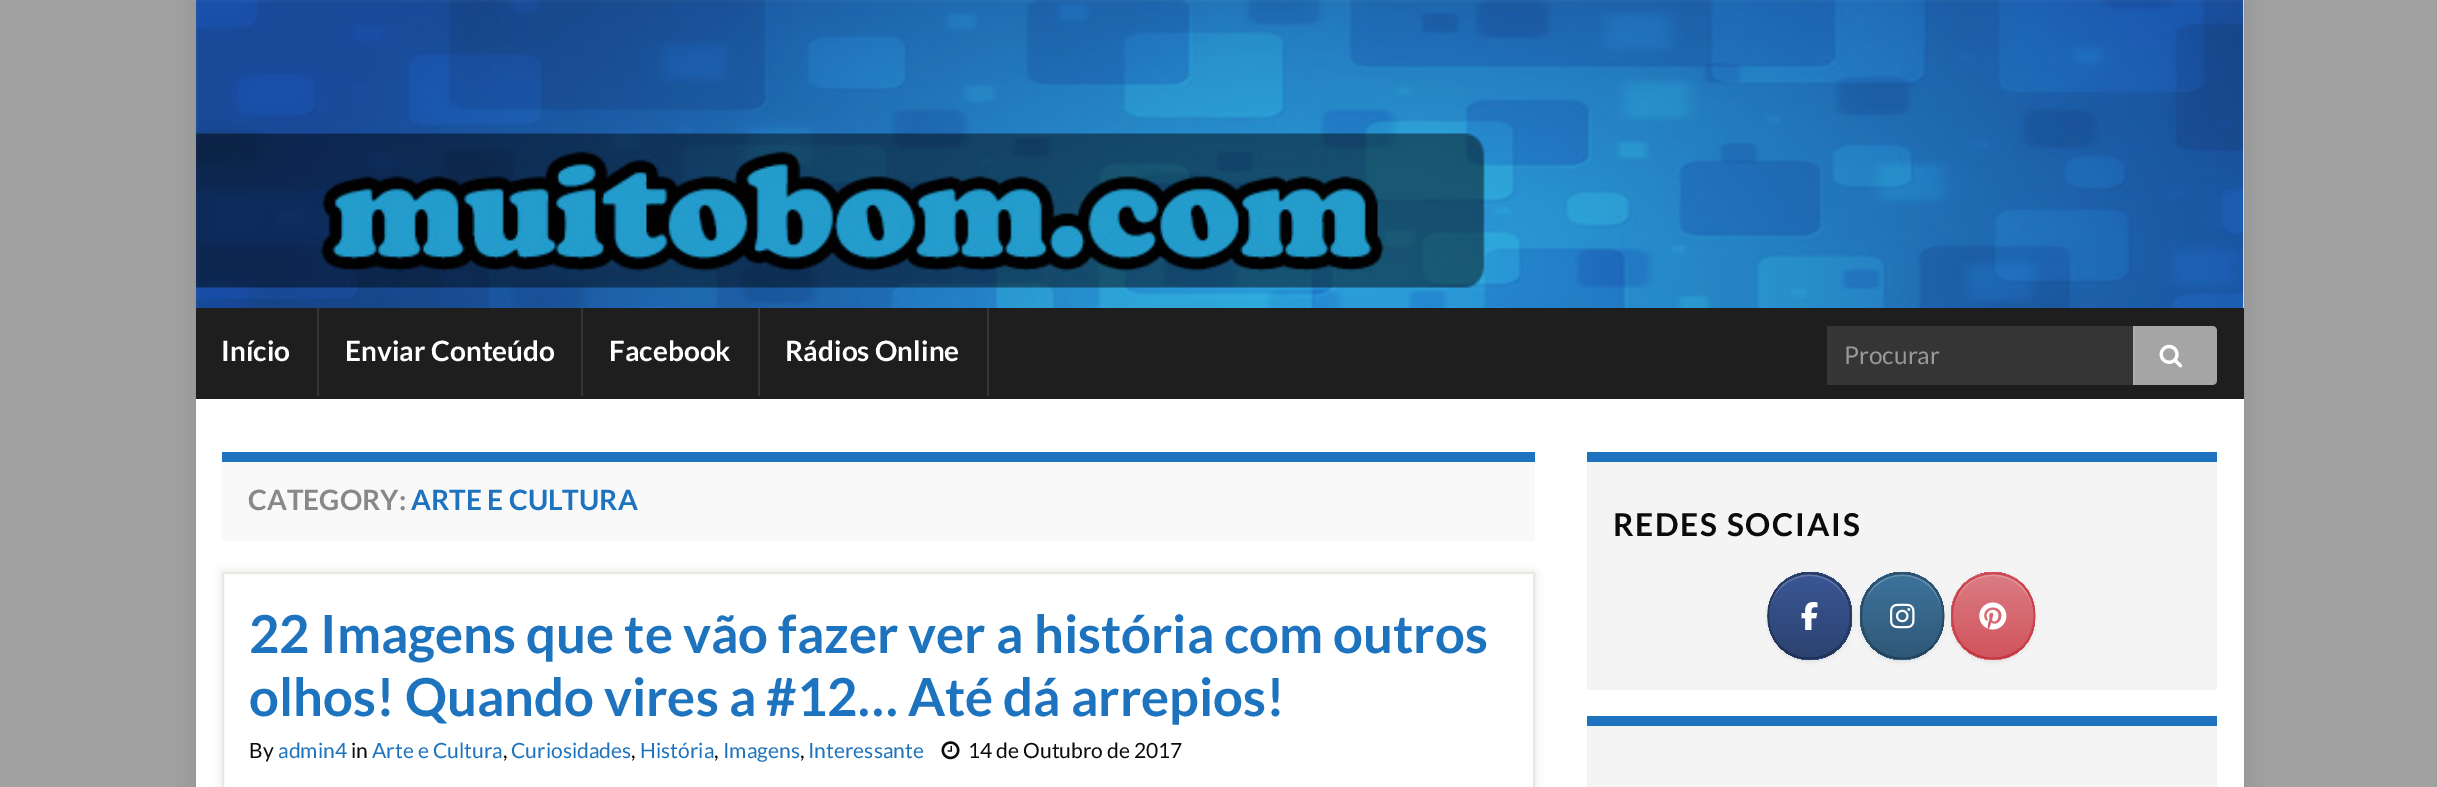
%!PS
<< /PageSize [2437 787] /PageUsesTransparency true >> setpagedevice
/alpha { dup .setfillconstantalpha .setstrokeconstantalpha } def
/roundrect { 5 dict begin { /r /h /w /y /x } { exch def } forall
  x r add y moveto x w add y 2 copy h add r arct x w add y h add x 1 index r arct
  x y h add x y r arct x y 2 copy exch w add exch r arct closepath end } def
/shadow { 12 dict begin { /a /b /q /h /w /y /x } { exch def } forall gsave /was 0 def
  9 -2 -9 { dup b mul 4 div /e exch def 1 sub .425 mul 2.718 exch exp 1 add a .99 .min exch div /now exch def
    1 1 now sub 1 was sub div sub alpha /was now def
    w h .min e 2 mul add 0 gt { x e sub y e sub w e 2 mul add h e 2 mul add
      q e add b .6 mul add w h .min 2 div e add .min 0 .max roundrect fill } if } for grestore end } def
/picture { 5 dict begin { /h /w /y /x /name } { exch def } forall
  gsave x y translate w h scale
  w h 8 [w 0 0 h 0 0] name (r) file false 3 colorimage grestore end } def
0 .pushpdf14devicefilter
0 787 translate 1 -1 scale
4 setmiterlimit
0.627 setgray
0 0 2437 787 rectfill
0 setgray
196 0 2048 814 0 9 0.1 shadow
1 setgray
2243 0 1 308 rectfill
(img1.rgb) 196 0 2048 308 picture
0.118 setgray
196 308 2048 91 rectfill
0.208 setgray
317 308 2 88 rectfill
/Lato-Bold [28 0 0 -28 0 0] selectfont
1 setgray
221 361 moveto (Início) show
0.208 setgray
581 308 2 88 rectfill
1 setgray
345 361 moveto (Enviar Conteúdo) show
0.208 setgray
758 308 2 88 rectfill
1 setgray
609 361 moveto (Facebook) show
0.208 setgray
987 308 2 88 rectfill
1 setgray
785 361 moveto (Rádios Online) show
0.208 setgray
1827 326 308 59 rectfill
/Lato-Regular [24.5 0 0 -24.5 0 0] selectfont
0.6 setgray
1844 364 moveto (Procurar) show
0.6 alpha
1 setgray
newpath 2133 326 moveto 2212 326 lineto 2215 326 2217 328 2217 331 curveto 2217 380 lineto 2217 383 2215 385 2212 385 curveto 2133 385 lineto closepath fill
1 alpha
(img2.rgb) 2159 344 24 24 picture
196 399 2048 388 rectfill
0.976 setgray
222 462 1313 79 rectfill
0.118 0.451 0.745 setrgbcolor
222 452 1313 10 rectfill
/Lato-Bold [28 0 0 -28 0 0] selectfont
0.533 setgray
248 510 moveto (CATEGORY:) show
0.118 0.451 0.745 setrgbcolor
411 510 moveto (ARTE E CULTURA) show
0 setgray
222 572 1313 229 0 4.5 0.1 shadow
1 setgray
newpath 223 573 moveto 1534 573 lineto 1534 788 lineto 223 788 lineto closepath gsave fill grestore
0.914 0.91 0.89 setrgbcolor
2 setlinewidth
stroke
/Lato-Bold [52.5 0 0 -52.5 0 0] selectfont
0.118 0.451 0.745 setrgbcolor
249 653 moveto (22 Imagens que te vão fazer ver a história com outros) show
249 716 moveto (olhos! Quando vires a #12… Até dá arrepios!) show
/Lato-Regular [21 0 0 -21 0 0] selectfont
0.047 0.043 0.043 setrgbcolor
249 758 moveto (By) show
0.118 0.451 0.745 setrgbcolor
278 758 moveto (admin4) show
0.047 0.043 0.043 setrgbcolor
351 758 moveto (in) show
0.118 0.451 0.745 setrgbcolor
372 758 moveto (Arte e Cultura) show
0.047 0.043 0.043 setrgbcolor
503 758 moveto (,) show
0.118 0.451 0.745 setrgbcolor
511 758 moveto (Curiosidades) show
0.047 0.043 0.043 setrgbcolor
631 758 moveto (,) show
0.118 0.451 0.745 setrgbcolor
640 758 moveto (História) show
0.047 0.043 0.043 setrgbcolor
714 758 moveto (,) show
0.118 0.451 0.745 setrgbcolor
723 758 moveto (Imagens) show
0.047 0.043 0.043 setrgbcolor
800 758 moveto (,) show
0.118 0.451 0.745 setrgbcolor
808 758 moveto (Interessante) show
(img3.rgb) 941 741 19 19 picture
0.047 0.043 0.043 setrgbcolor
968 758 moveto (14 de Outubro de 2017) show
0.957 setgray
1587 462 630 228 rectfill
0.118 0.451 0.745 setrgbcolor
1587 452 630 10 rectfill
/Lato-Bold [31.5 0 0 -31.5 0 0] selectfont
0.047 0.043 0.043 setrgbcolor
1613 536 moveto 1.75 0 (REDES SOCIAIS) ashow
0 setgray
1768 574 84 88 42 2 0.07 shadow
gsave
1768 572 84 88 42 roundrect clip newpath
gsave newpath 1797 572 moveto 1823 572 lineto 1823 574 lineto 1797 574 lineto closepath clip newpath
<< /ShadingType 2 /ColorSpace /DeviceRGB /Coords [1769 574 1769 490] /Extend [true true] /Function << /FunctionType 2 /Domain [0 1] /C0 [0.173 0.259 0.439] /C1 [0.227 0.341 0.584] /N 1 >> >> shfill grestore
gsave newpath 1768 574 moveto 1852 574 lineto 1852 658 lineto 1768 658 lineto closepath clip newpath
<< /ShadingType 2 /ColorSpace /DeviceRGB /Coords [1769 658 1769 574] /Extend [true true] /Function << /FunctionType 2 /Domain [0 1] /C0 [0.173 0.259 0.439] /C1 [0.227 0.341 0.584] /N 1 >> >> shfill grestore
gsave newpath 1797 658 moveto 1823 658 lineto 1823 660 lineto 1797 660 lineto closepath clip newpath
<< /ShadingType 2 /ColorSpace /DeviceRGB /Coords [1769 742 1769 658] /Extend [true true] /Function << /FunctionType 2 /Domain [0 1] /C0 [0.173 0.259 0.439] /C1 [0.227 0.341 0.584] /N 1 >> >> shfill grestore
grestore
0.2 alpha
1 setgray
newpath 1810 576 moveto 1831 576 1849 594 1850 614 curveto 1850 606 1848 599 1843 592 curveto 1820 558 1769 575 1769 615 curveto 1770 593 1788 576 1810 576 curveto closepath fill
1 alpha
0.153 0.231 0.396 setrgbcolor
1.8 setlinewidth
newpath 1780.5 585 moveto 1796.5 569.5 1822.5 569.5 1838.5 585 curveto stroke
0.145 0.216 0.369 setrgbcolor
newpath 1838.5 585 moveto 1855 601.5 1855 630.5 1838.5 647 curveto stroke
0.125 0.188 0.325 setrgbcolor
newpath 1838.5 647 moveto 1822.5 662.5 1796.5 662.5 1780.5 647 curveto stroke
0.145 0.216 0.369 setrgbcolor
newpath 1780.5 647 moveto 1764 630.5 1764 601.5 1780.5 585 curveto stroke
(img4.rgb) 1801 602 17 28 picture
0 setgray
1860 574 84 88 42 2 0.07 shadow
gsave
1860 572 84 88 42 roundrect clip newpath
gsave newpath 1889 572 moveto 1915 572 lineto 1915 574 lineto 1889 574 lineto closepath clip newpath
<< /ShadingType 2 /ColorSpace /DeviceRGB /Coords [1862 574 1862 490] /Extend [true true] /Function << /FunctionType 2 /Domain [0 1] /C0 [0.184 0.345 0.467] /C1 [0.239 0.451 0.612] /N 1 >> >> shfill grestore
gsave newpath 1860 574 moveto 1944 574 lineto 1944 658 lineto 1860 658 lineto closepath clip newpath
<< /ShadingType 2 /ColorSpace /DeviceRGB /Coords [1862 658 1862 574] /Extend [true true] /Function << /FunctionType 2 /Domain [0 1] /C0 [0.184 0.345 0.467] /C1 [0.239 0.451 0.612] /N 1 >> >> shfill grestore
gsave newpath 1889 658 moveto 1915 658 lineto 1915 660 lineto 1889 660 lineto closepath clip newpath
<< /ShadingType 2 /ColorSpace /DeviceRGB /Coords [1862 742 1862 658] /Extend [true true] /Function << /FunctionType 2 /Domain [0 1] /C0 [0.184 0.345 0.467] /C1 [0.239 0.451 0.612] /N 1 >> >> shfill grestore
grestore
0.2 alpha
1 setgray
newpath 1902 576 moveto 1931 576 1947 604 1942 628 curveto 1949 602 1931 574 1902 574 curveto 1892 574 1882 578 1875 585 curveto 1868 592 1863 601 1862 611 curveto 1865 592 1882 576 1902 576 curveto closepath fill
1 alpha
0.165 0.314 0.424 setrgbcolor
newpath 1873 585 moveto 1889 569.5 1915.5 569.5 1931.5 585 curveto stroke
0.153 0.29 0.396 setrgbcolor
newpath 1931.5 585 moveto 1947.5 601.5 1947.5 630.5 1931.5 647 curveto stroke
0.137 0.259 0.353 setrgbcolor
newpath 1931.5 647 moveto 1915.5 662.5 1889 662.5 1873 647 curveto stroke
0.153 0.29 0.396 setrgbcolor
newpath 1873 647 moveto 1857 630.5 1857 601.5 1873 585 curveto stroke
(img5.rgb) 1890 603 25 26 picture
0 setgray
1951 574 84 88 42 2 0.07 shadow
gsave
1951 572 84 88 42 roundrect clip newpath
gsave newpath 1980 572 moveto 2006 572 lineto 2006 574 lineto 1980 574 lineto closepath clip newpath
<< /ShadingType 2 /ColorSpace /DeviceRGB /Coords [1953 574 1953 490] /Extend [true true] /Function << /FunctionType 2 /Domain [0 1] /C0 [0.816 0.329 0.365] /C1 [0.859 0.486 0.514] /N 1 >> >> shfill grestore
gsave newpath 1951 574 moveto 2035 574 lineto 2035 658 lineto 1951 658 lineto closepath clip newpath
<< /ShadingType 2 /ColorSpace /DeviceRGB /Coords [1953 658 1953 574] /Extend [true true] /Function << /FunctionType 2 /Domain [0 1] /C0 [0.816 0.329 0.365] /C1 [0.859 0.486 0.514] /N 1 >> >> shfill grestore
gsave newpath 1980 658 moveto 2006 658 lineto 2006 660 lineto 1980 660 lineto closepath clip newpath
<< /ShadingType 2 /ColorSpace /DeviceRGB /Coords [1953 742 1953 658] /Extend [true true] /Function << /FunctionType 2 /Domain [0 1] /C0 [0.816 0.329 0.365] /C1 [0.859 0.486 0.514] /N 1 >> >> shfill grestore
grestore
0.2 alpha
1 setgray
newpath 1993 576 moveto 2022 576 2038 604 2033 628 curveto 2040 602 2022 574 1994 574 curveto 1983 574 1973 578 1966 585 curveto 1958 592 1954 602 1953 612 curveto 1956 593 1970 576 1993 576 curveto closepath fill
1 alpha
0.804 0.282 0.322 setrgbcolor
newpath 1964 585 moveto 1980 569.5 2006.5 569.5 2022.5 585 curveto stroke
0.796 0.251 0.29 setrgbcolor
newpath 2022.5 585 moveto 2038.5 601.5 2038.5 630.5 2022.5 647 curveto stroke
0.773 0.212 0.255 setrgbcolor
newpath 2022.5 647 moveto 2006.5 662.5 1980 662.5 1964 647 curveto stroke
0.796 0.251 0.29 setrgbcolor
newpath 1964 647 moveto 1948 630.5 1948 601.5 1964 585 curveto stroke
(img6.rgb) 1979 602 28 28 picture
0.957 setgray
1587 726 630 61 rectfill
0.118 0.451 0.745 setrgbcolor
1587 716 630 10 rectfill
.poppdf14devicefilter showpage
